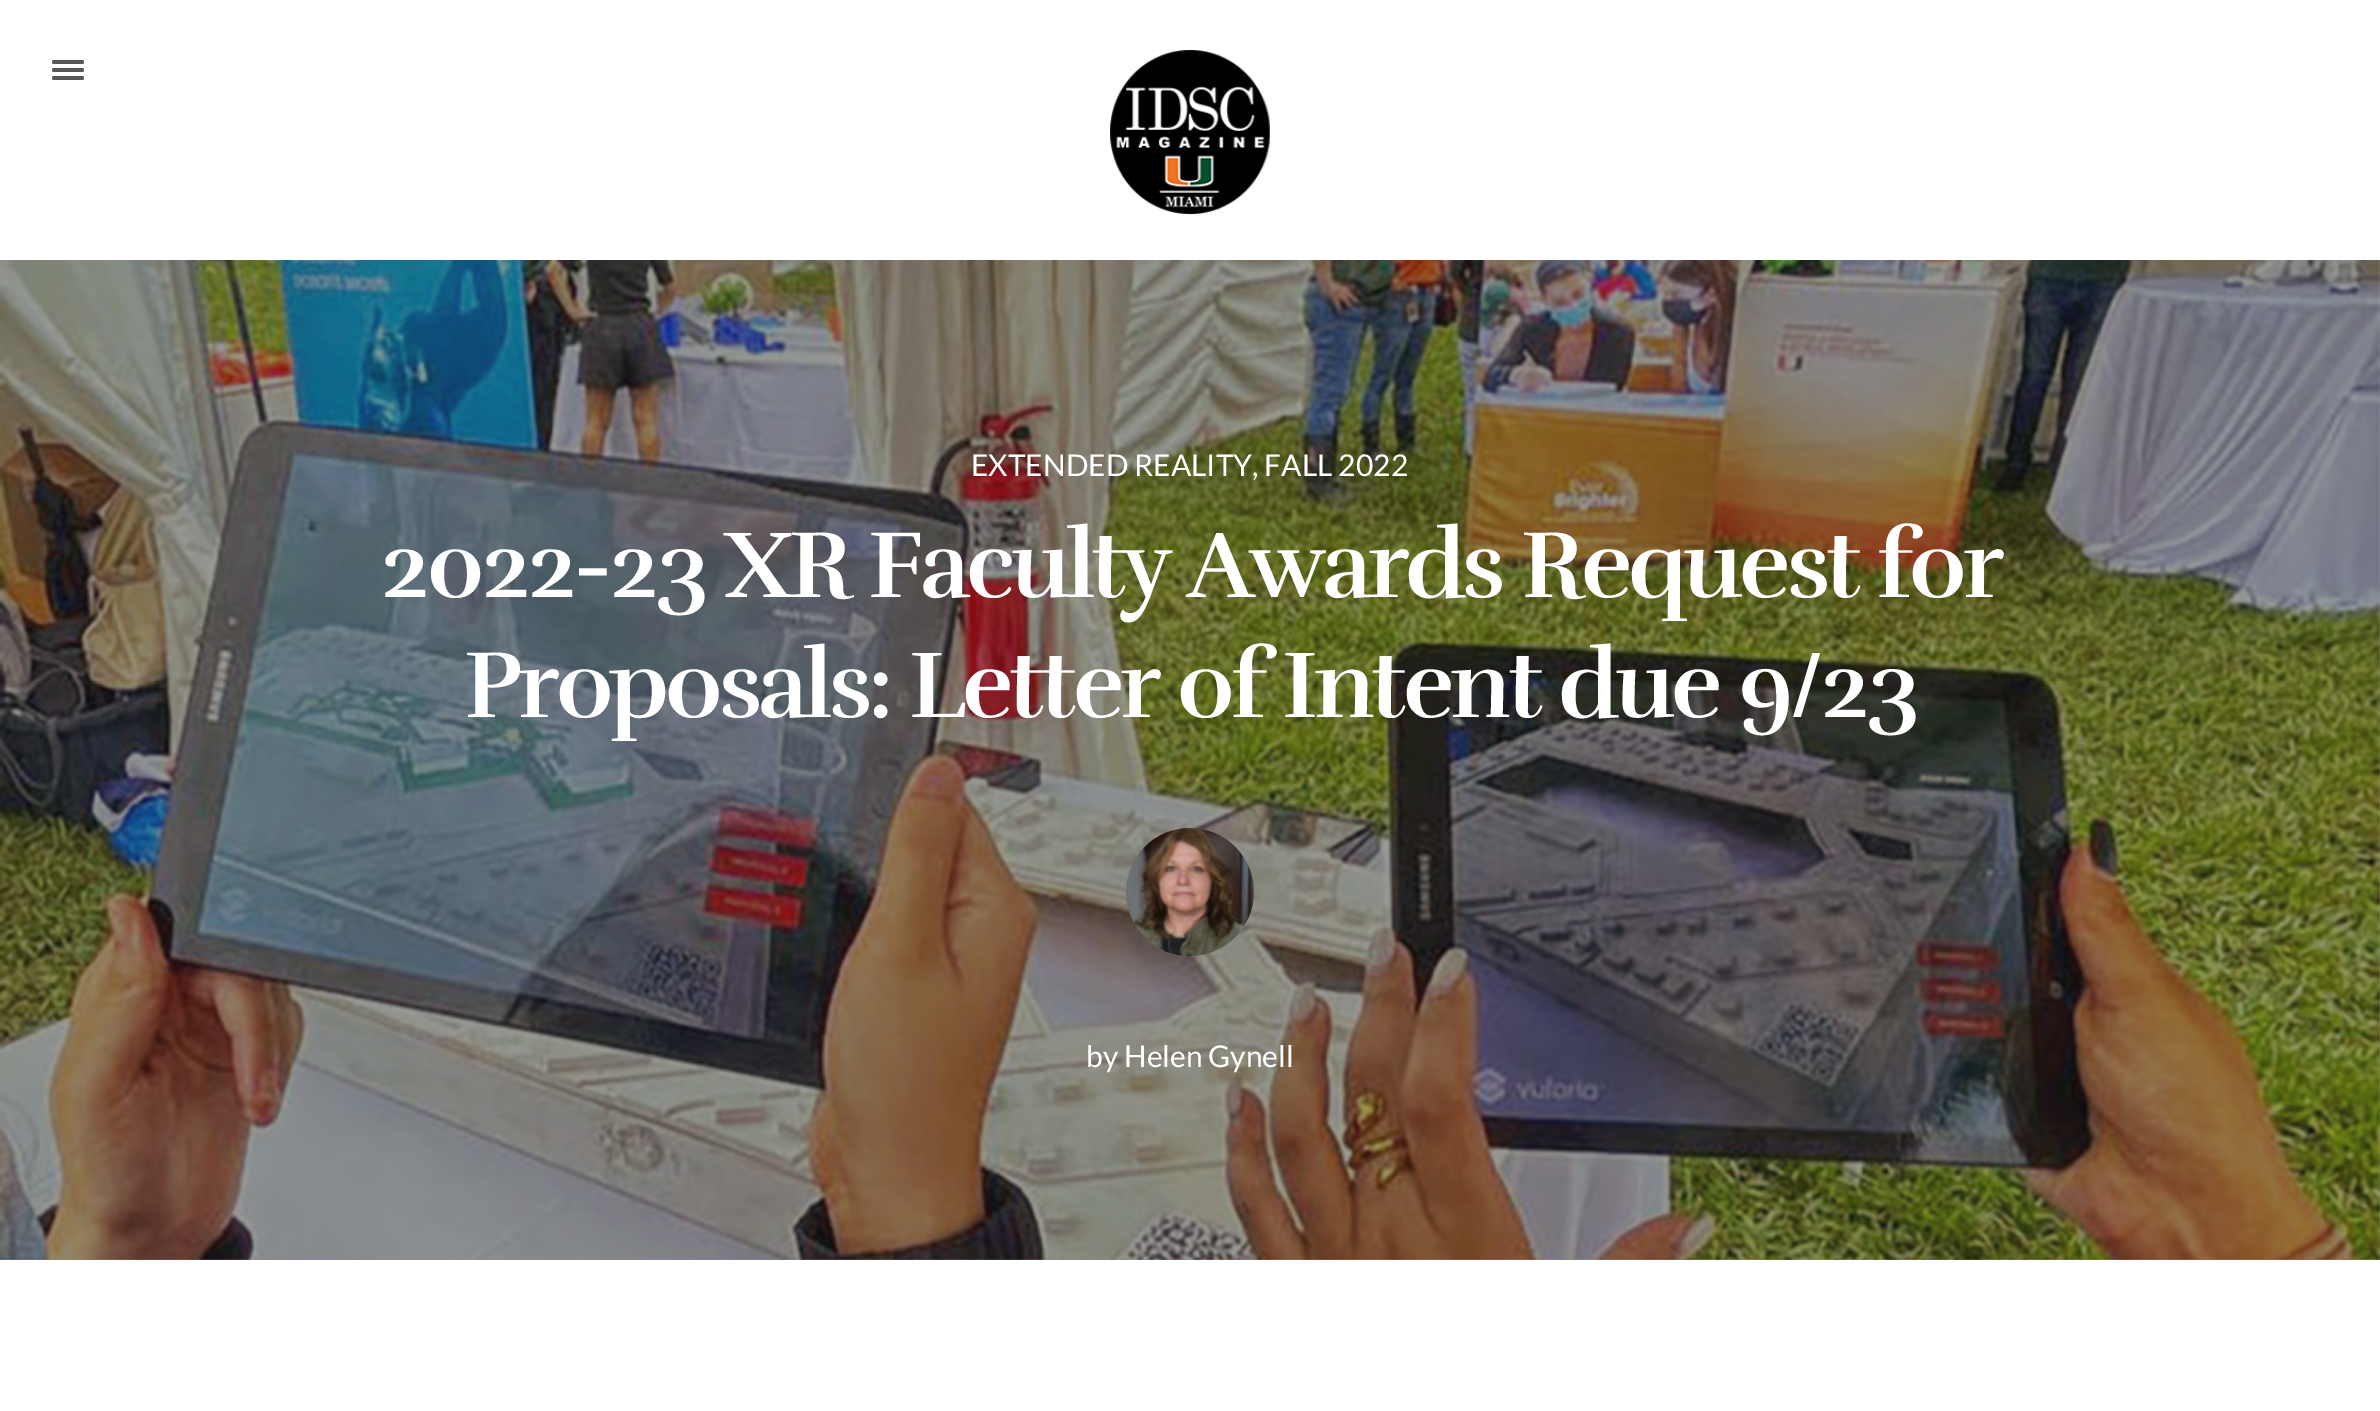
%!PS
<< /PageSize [2380 1411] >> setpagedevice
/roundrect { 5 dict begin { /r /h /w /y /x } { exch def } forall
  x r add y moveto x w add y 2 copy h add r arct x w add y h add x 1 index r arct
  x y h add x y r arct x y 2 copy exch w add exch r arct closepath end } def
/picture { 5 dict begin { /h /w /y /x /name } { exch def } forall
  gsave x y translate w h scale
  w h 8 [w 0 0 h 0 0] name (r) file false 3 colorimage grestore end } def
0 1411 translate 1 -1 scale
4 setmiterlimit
1 setgray
0 0 2380 1411 rectfill
0.333 setgray
52 60 32 4 2 roundrect fill
52 68 32 4 2 roundrect fill
52 76 32 4 2 roundrect fill
(img1.rgb) 1110 50 160 165 picture
0.6 setgray
0 260 2380 1000 rectfill
(img2.rgb) 0 260 2380 1000 picture
/Lato-Regular [30 0 0 -30 0 0] selectfont
1 setgray
971 476 moveto (EXTENDED REALITY, FALL 2022) show
/Rufina-Bold [96 0 0 -96 0 0] selectfont
380 597 moveto -4 0 (2022-23 XR Faculty Awards Request for) ashow
464 717 moveto -4 0 (Proposals: Letter of Intent due 9/23) ashow
(img3.rgb) 1126 828 128 128 picture
/Lato-Regular [30 0 0 -30 0 0] selectfont
1086 1067 moveto (by Helen Gynell) show
showpage
